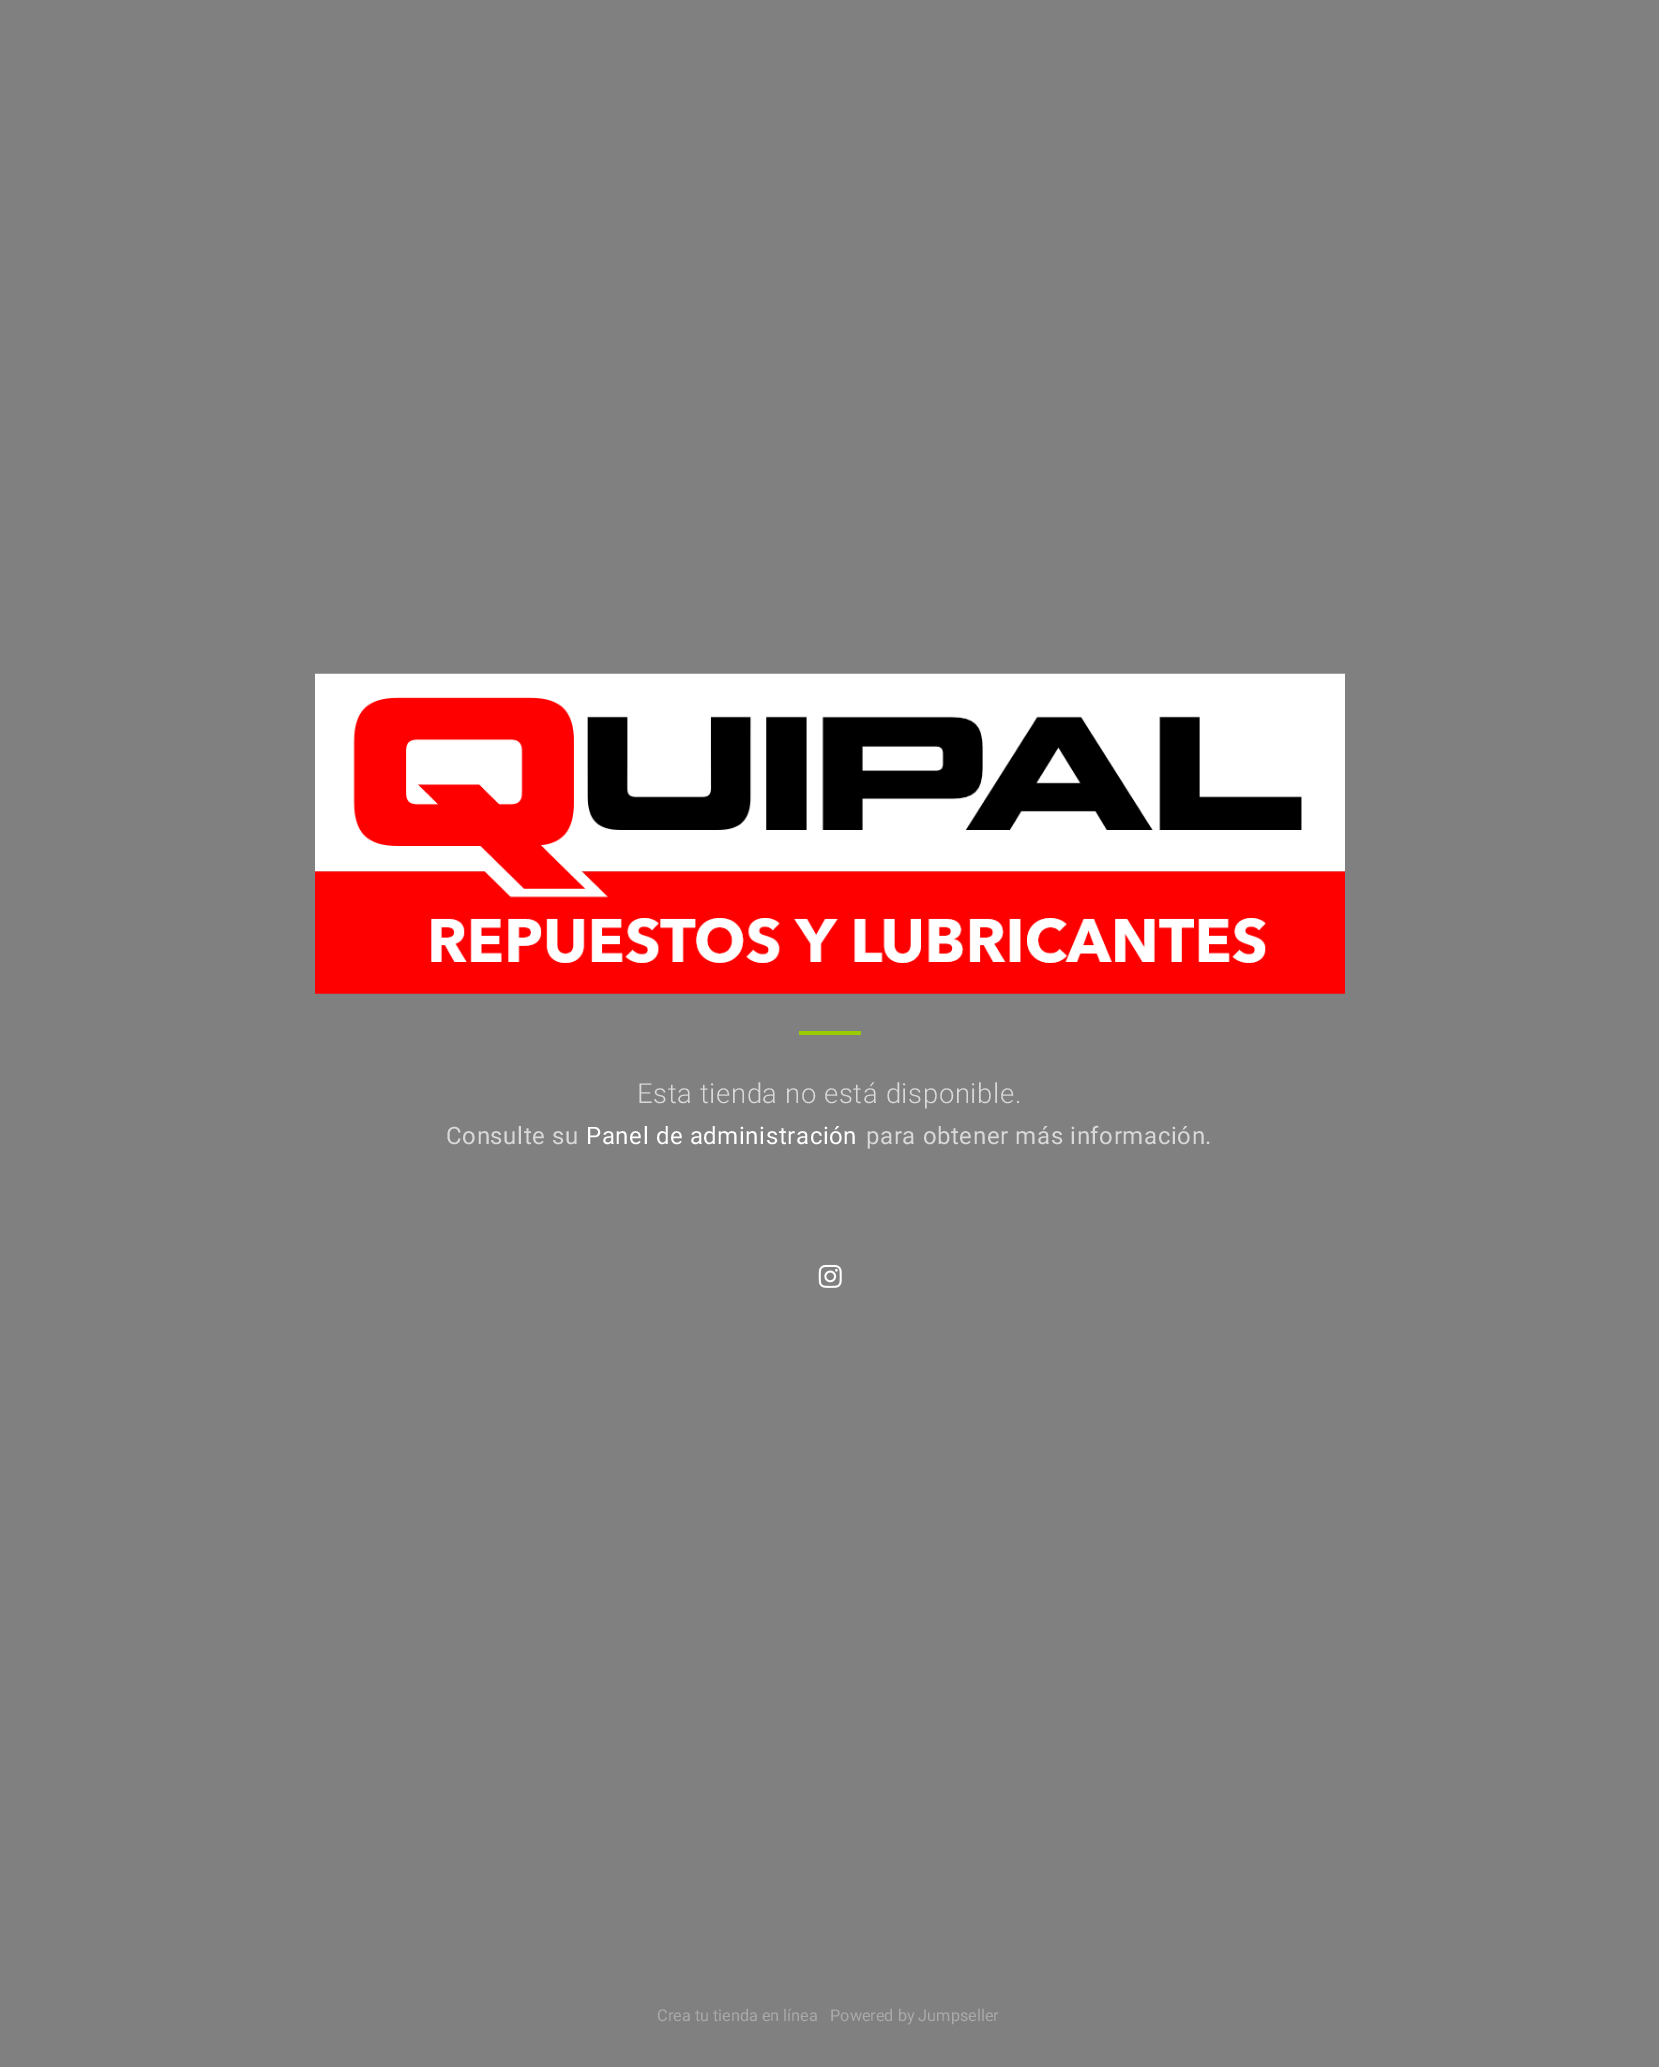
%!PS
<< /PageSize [1659 2067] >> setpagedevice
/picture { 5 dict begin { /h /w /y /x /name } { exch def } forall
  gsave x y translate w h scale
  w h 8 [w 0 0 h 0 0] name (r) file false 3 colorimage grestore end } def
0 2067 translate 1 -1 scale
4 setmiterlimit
0.502 setgray
0 0 1659 2067 rectfill
(img1.rgb) 315 673 1030 321 picture
0.6 0.8 0 setrgbcolor
799 1031 62 4 rectfill
/Roboto-Light [27.5 0 0 -27.5 0 0] selectfont
0.851 setgray
637 1103 moveto 0.6 0 (Esta tienda no está disponible.) ashow
/Roboto-Regular [24 0 0 -24 0 0] selectfont
446 1144 moveto 0.6 0 (Consulte su) ashow
1 setgray
586 1144 moveto 0.6 0 (Panel de administración) ashow
0.851 setgray
866 1144 moveto 0.6 0 (para obtener más información.) ashow
(img2.rgb) 818 1264 24 24 picture
/Roboto-Regular [16.25 0 0 -16.25 0 0] selectfont
0.667 setgray
657 2021 moveto (Crea tu tienda en línea) show
830 2021 moveto (Powered by Jumpseller) show
showpage
